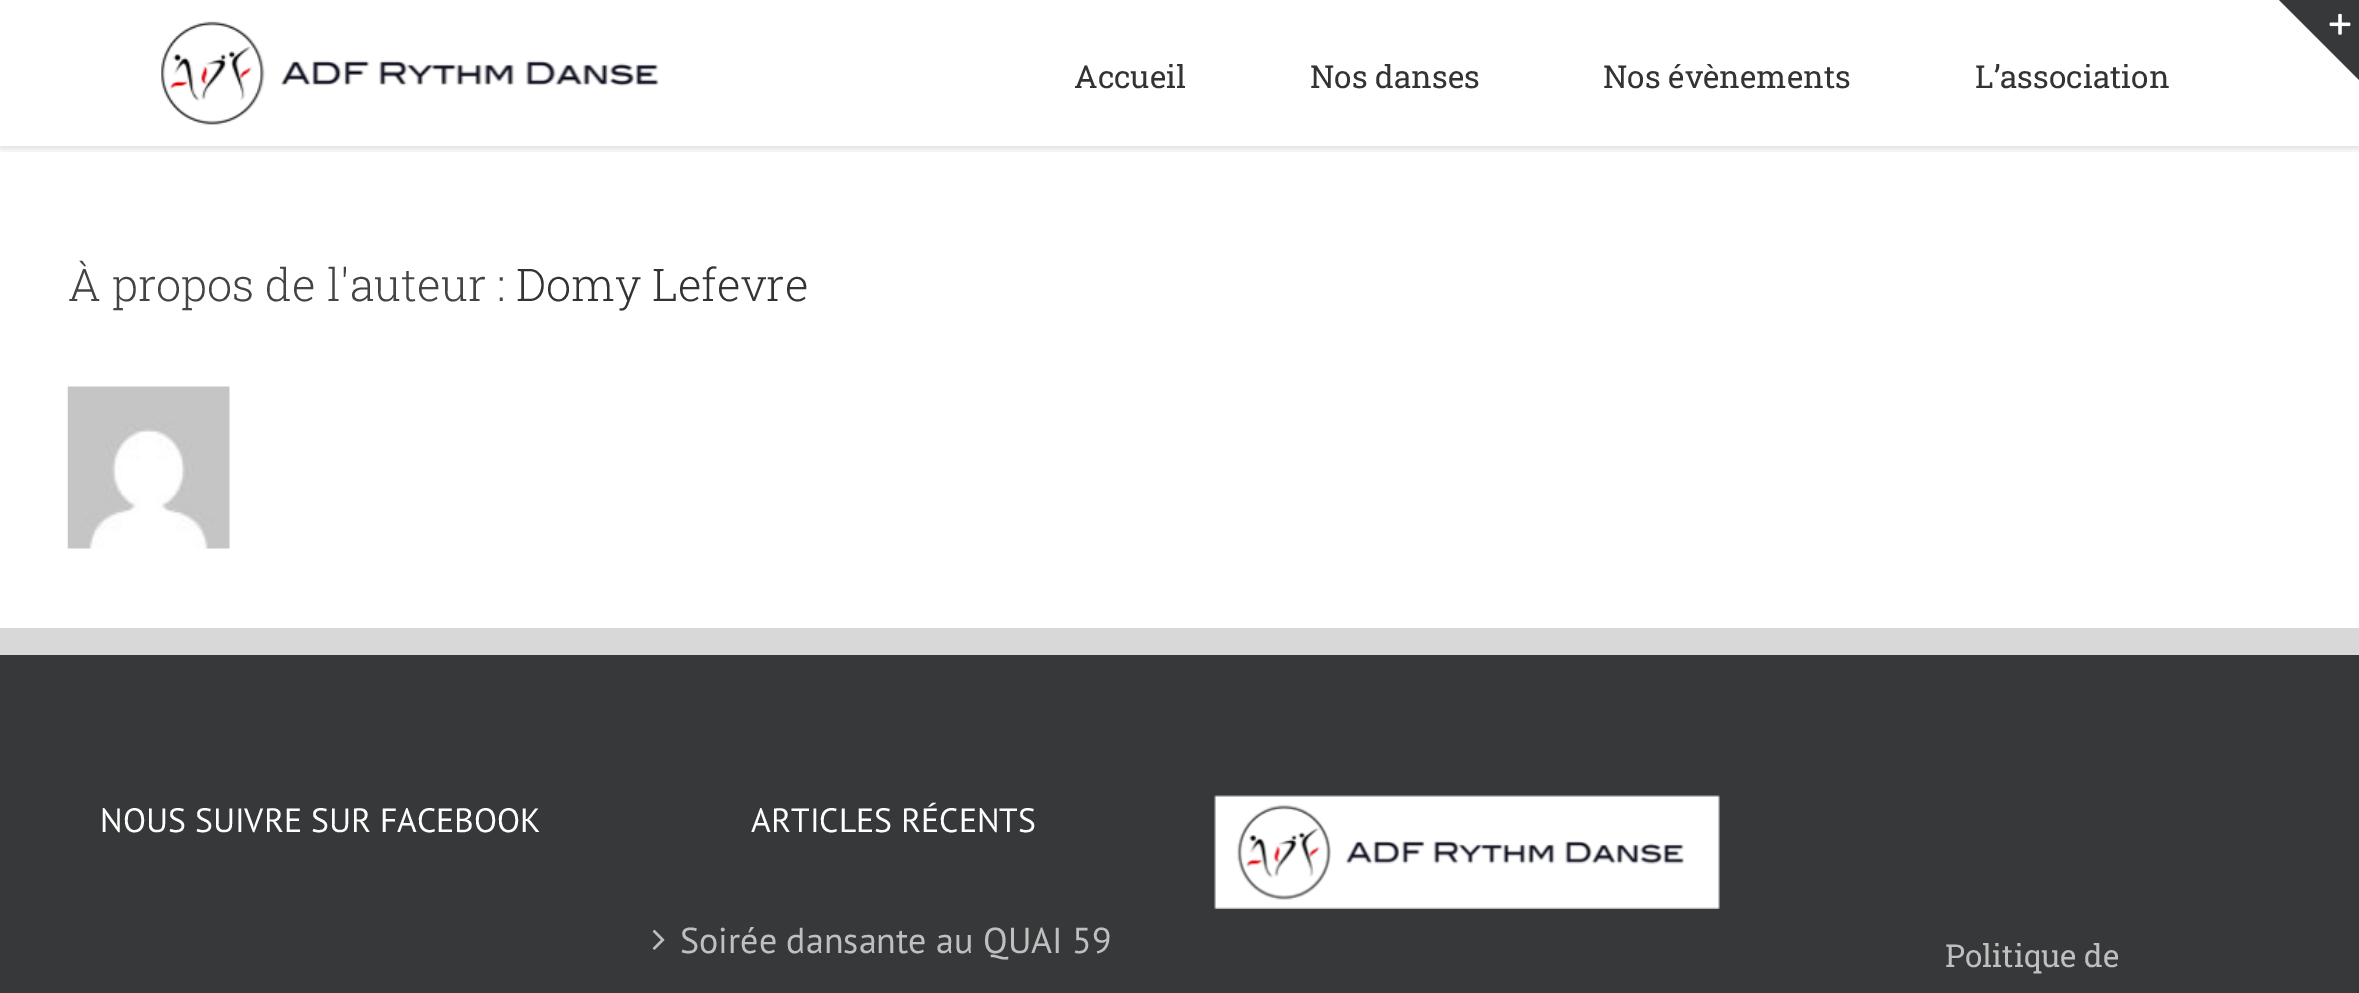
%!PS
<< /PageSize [2359 993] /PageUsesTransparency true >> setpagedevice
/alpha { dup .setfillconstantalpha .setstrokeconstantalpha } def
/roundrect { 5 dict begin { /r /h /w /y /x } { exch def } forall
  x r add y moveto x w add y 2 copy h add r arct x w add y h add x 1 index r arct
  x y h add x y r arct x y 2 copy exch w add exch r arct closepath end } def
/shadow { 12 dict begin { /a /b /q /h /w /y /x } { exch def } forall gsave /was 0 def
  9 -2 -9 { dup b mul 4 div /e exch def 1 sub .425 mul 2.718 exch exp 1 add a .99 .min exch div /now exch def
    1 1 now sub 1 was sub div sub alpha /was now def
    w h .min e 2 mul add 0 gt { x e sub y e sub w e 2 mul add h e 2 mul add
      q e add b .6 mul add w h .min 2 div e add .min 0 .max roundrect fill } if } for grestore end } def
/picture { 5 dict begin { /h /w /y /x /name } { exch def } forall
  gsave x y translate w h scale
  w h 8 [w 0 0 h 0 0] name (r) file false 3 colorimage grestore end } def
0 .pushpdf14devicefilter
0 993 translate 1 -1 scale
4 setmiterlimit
1 setgray
0 0 2359 993 rectfill
gsave
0 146 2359 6 rectclip
0 setgray
0 2 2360 147 0 3.5 0.12 shadow
grestore
(img1.rgb) 137 21 555 104 picture
/RobotoSlab-Regular [31.5 0 0 -31.5 0 0] selectfont
0.2 setgray
1074 88 moveto (Accueil) show
1310 88 moveto (Nos danses) show
1603 88 moveto (Nos évènements) show
1975 88 moveto (L’association) show
0.212 0.22 0.224 setrgbcolor
newpath 2279 0 moveto 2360 0 lineto 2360 81 lineto closepath fill
(img2.rgb) 2329 13 22 22 picture
/RobotoSlab-Light [45 0 0 -45 0 0] selectfont
0.267 setgray
68 301 moveto (À propos de l'auteur :) show
0.2 setgray
516 301 moveto (Domy Lefevre) show
(img3.rgb) 67 386 163 163 picture
0.212 0.22 0.224 setrgbcolor
0 655 2359 338 rectfill
0.847 setgray
0 628 2359 27 rectfill
/PTSans-Regular [33.75 0 0 -33.75 0 0] selectfont
1 setgray
100 832 moveto (NOUS SUIVRE SUR FACEBOOK) show
751 832 moveto (ARTICLES RÉCENTS) show
(img4.rgb) 652 929 13 21 picture
/PTSans-Regular [36 0 0 -36 0 0] selectfont
0.749 setgray
680 953 moveto (Soirée dansante au QUAI 59) show
(img5.rgb) 1214 795 506 114 picture
/RobotoSlab-Regular [31.5 0 0 -31.5 0 0] selectfont
1945 967 moveto (Politique de) show
.poppdf14devicefilter showpage
